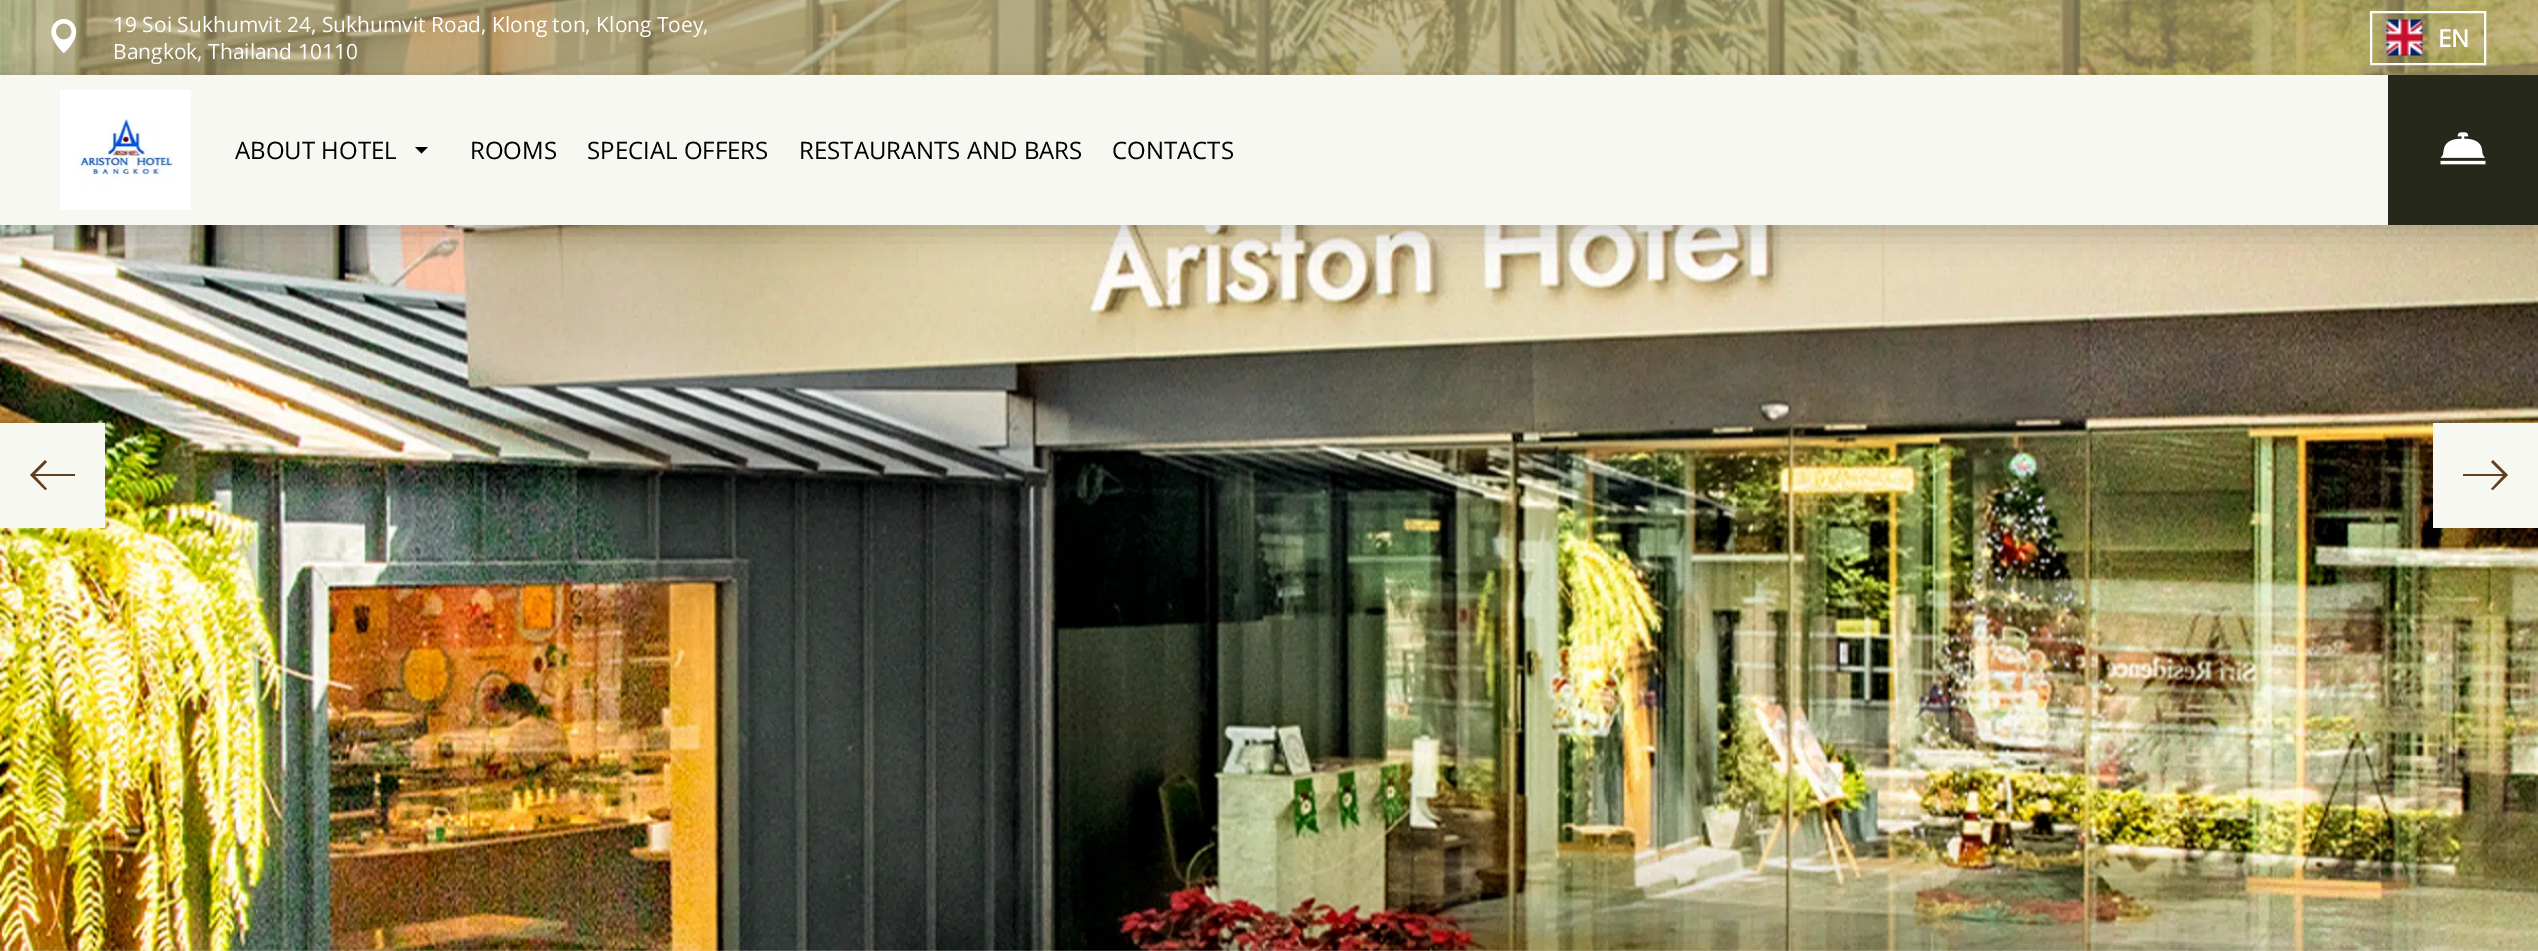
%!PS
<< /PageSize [2538 951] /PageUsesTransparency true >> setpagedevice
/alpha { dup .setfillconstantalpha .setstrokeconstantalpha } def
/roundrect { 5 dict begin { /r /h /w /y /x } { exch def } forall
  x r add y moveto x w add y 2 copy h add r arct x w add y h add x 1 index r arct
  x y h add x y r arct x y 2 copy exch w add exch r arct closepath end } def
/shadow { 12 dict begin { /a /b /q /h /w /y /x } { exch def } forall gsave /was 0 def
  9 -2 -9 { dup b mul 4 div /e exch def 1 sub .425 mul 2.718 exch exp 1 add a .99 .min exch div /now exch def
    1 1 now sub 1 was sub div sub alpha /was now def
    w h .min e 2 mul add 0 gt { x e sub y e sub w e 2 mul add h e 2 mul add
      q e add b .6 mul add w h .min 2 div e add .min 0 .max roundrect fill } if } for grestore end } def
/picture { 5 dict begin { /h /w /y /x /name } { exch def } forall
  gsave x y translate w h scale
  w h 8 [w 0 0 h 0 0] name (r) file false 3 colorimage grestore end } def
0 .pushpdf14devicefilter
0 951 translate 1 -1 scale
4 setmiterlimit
1 setgray
0 0 2538 951 rectfill
(img1.rgb) 0 0 2538 951 picture
0.973 0.973 0.949 setrgbcolor
0 423 105 105 rectfill
0.376 0.243 0.125 setrgbcolor
newpath 47 489 moveto 35 476 lineto 75 476 lineto 75 474 lineto 35 474 lineto 47 462 lineto 45 460 lineto 30 475 lineto 45 490 lineto closepath fill
0.973 0.973 0.949 setrgbcolor
2433 423 105 105 rectfill
0.376 0.243 0.125 setrgbcolor
newpath 2491 489 moveto 2503 476 lineto 2463 476 lineto 2463 474 lineto 2503 474 lineto 2491 462 lineto 2493 460 lineto 2508 475 lineto 2493 490 lineto closepath fill
0.7 alpha
0.671 0.627 0.439 setrgbcolor
0 0 2538 75 rectfill
1 alpha
(img2.rgb) 51 18 26 36 picture
/OpenSans-Regular [21 0 0 -21 0 0] selectfont
1 setgray
113 32 moveto (19 Soi Sukhumvit 24, Sukhumvit Road, Klong ton, Klong Toey,) show
113 59 moveto (Bangkok, Thailand 10110) show
2 setlinewidth
2371 12 114 52 rectstroke
(img3.rgb) 2386 19 37 37 picture
0.16 alpha
0.239 setgray
2388 21 34 34 rectstroke
/OpenSans-Bold [24 0 0 -24 0 0] selectfont
1 alpha
1 setgray
2438 47 moveto (EN) show
0 setgray
0 83 2538 150 0 15 0.2 shadow
0.973 0.973 0.949 setrgbcolor
0 75 2388 150 rectfill
(img4.rgb) 60 90 131 120 picture
/OpenSans-Regular [24 0 0 -24 0 0] selectfont
0 setgray
235 159 moveto (ABOUT HOTEL) show
newpath 421.5 153.5 moveto 415 147 lineto 428 147 lineto closepath fill
470 159 moveto (ROOMS) show
587 159 moveto (SPECIAL OFFERS) show
799 159 moveto (RESTAURANTS AND BARS) show
1112 159 moveto (CONTACTS) show
0.153 0.157 0.11 setrgbcolor
2388 75 150 150 rectfill
(img5.rgb) 2440 132 46 33 picture
.poppdf14devicefilter showpage
